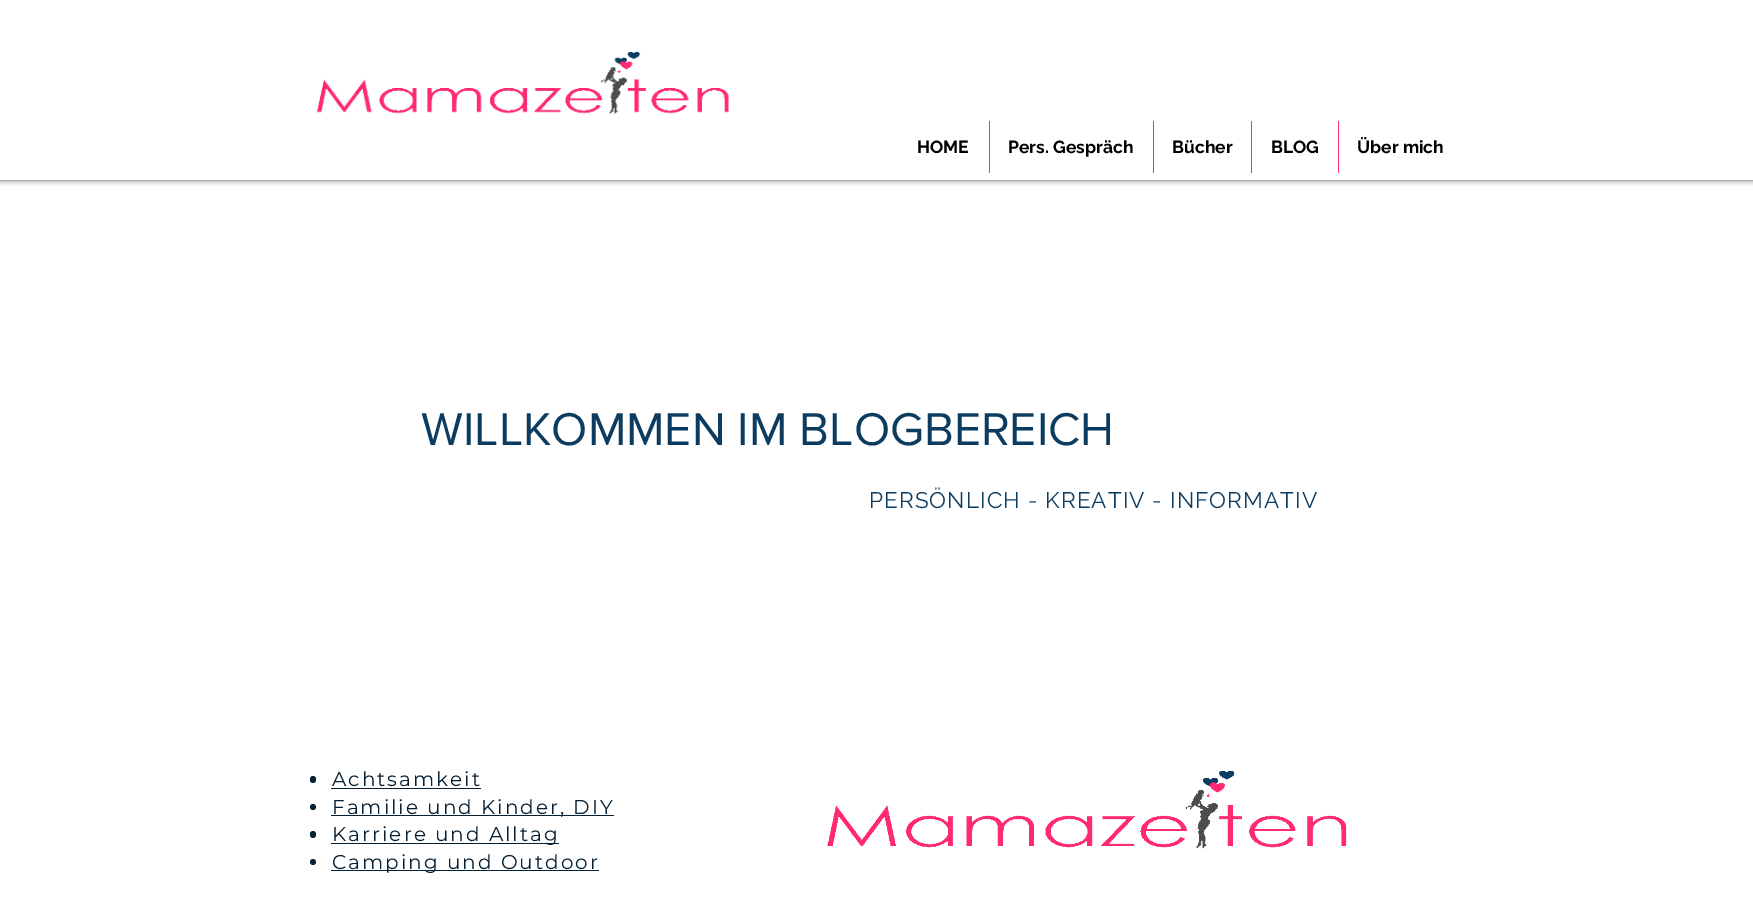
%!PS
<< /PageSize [1753 915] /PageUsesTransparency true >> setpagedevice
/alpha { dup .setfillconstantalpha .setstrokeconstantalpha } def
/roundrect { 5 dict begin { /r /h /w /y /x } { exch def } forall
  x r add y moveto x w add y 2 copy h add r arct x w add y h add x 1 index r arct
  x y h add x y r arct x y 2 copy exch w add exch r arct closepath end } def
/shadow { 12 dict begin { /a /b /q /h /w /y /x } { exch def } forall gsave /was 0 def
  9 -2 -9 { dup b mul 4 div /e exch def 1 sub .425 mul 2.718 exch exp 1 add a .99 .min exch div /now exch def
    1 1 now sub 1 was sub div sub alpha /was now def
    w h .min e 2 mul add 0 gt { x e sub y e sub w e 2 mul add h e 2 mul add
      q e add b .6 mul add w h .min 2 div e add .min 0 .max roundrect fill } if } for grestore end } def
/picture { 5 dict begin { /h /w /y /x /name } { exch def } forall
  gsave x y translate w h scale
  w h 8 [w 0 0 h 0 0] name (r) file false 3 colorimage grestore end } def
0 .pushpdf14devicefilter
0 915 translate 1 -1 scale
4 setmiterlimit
1 setgray
0 0 1753 915 rectfill
gsave
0 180 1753 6 rectclip
0 setgray
0 0 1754 180 0 3 0.7 shadow
grestore
(img1.rgb) 317 52 412 63 picture
/Raleway-Bold [17.5 0 0 -17.5 0 0] selectfont
0 setgray
917 153 moveto (HOME) show
1 0.161 0.459 setrgbcolor
989 121 1 52 rectfill
0 setgray
1008 153 moveto (Pers. Gespräch) show
1 0.161 0.459 setrgbcolor
1153 121 1 52 rectfill
0 setgray
1172 153 moveto (Bücher) show
1 0.161 0.459 setrgbcolor
1251 121 1 52 rectfill
0 setgray
1271 153 moveto (BLOG) show
1 0.161 0.459 setrgbcolor
1338 121 1 52 rectfill
0 setgray
1357 153 moveto (Über mich) show
/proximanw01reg-Regular [47.5 0 0 -47.5 0 0] selectfont
0.047 0.235 0.376 setrgbcolor
421 445 moveto (WILLKOMMEN IM BLOGBEREICH) show
/Raleway-Regular [22.5 0 0 -22.5 0 0] selectfont
869 508 moveto 1.1 0 (PERSÖNLICH - KREATIV - INFORMATIV) ashow
0.024 0.129 0.204 setrgbcolor
310 776 6 7 3 roundrect fill
/Montserrat-Regular [20 0 0 -20 0 0] selectfont
332 786 moveto 2 0 (Achtsamkeit) ashow
331 788 150 1 rectfill
newpath 313 807 3 0 360 arc closepath fill
331 815 283 1 rectfill
332 814 moveto 2 0 (Familie und Kinder, DIY) ashow
310 831 6 7 3 roundrect fill
331 843 228 1 rectfill
332 841 moveto 2 0 (Karriere und Alltag) ashow
newpath 313 862 3 0 360 arc closepath fill
331 870 268 1 rectfill
332 869 moveto 2 0 (Camping und Outdoor) ashow
(img2.rgb) 827 771 520 78 picture
.poppdf14devicefilter showpage
